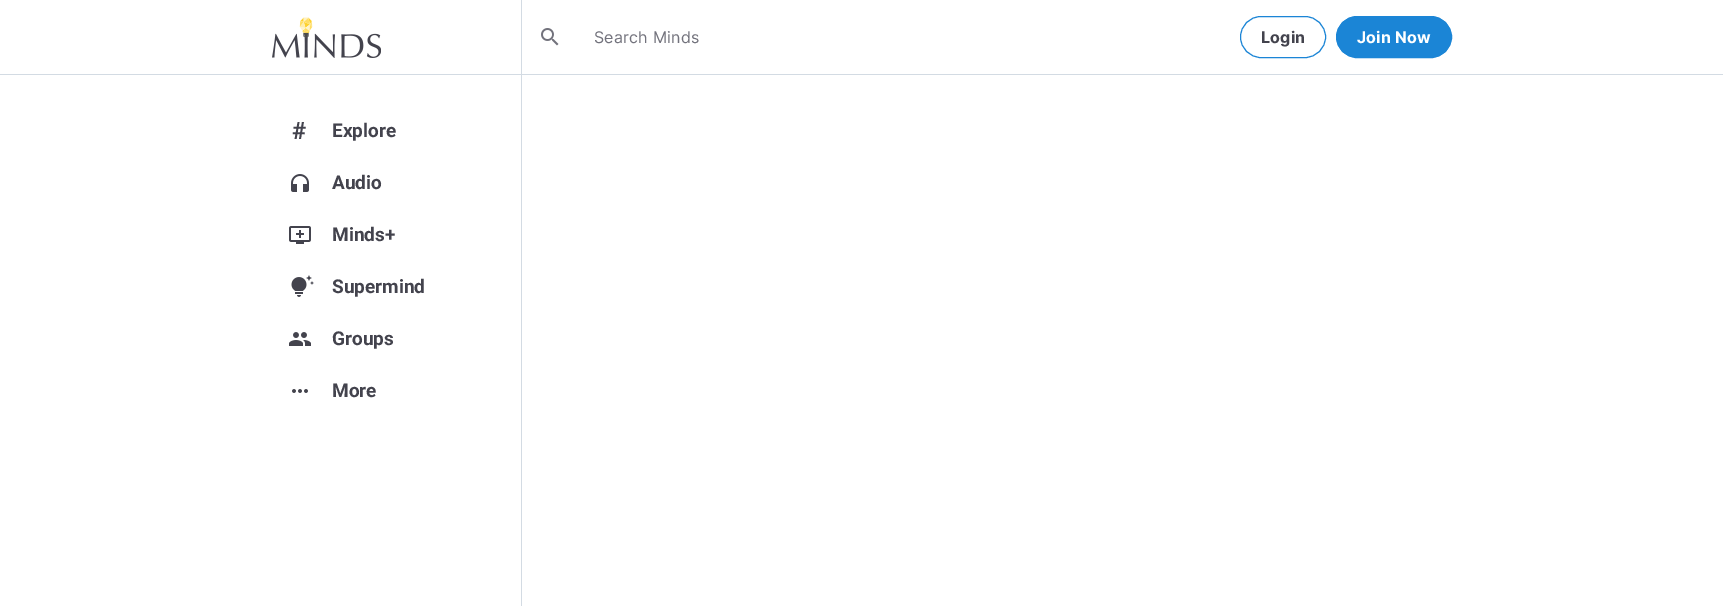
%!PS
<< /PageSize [1723 606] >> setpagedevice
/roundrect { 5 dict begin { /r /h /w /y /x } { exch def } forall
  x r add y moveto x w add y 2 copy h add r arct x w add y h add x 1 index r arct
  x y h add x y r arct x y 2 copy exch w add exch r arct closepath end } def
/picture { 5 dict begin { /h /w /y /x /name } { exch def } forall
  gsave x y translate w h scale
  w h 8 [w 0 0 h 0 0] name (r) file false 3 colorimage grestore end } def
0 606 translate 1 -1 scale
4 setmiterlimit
1 setgray
0 0 1723 606 rectfill
0.827 0.859 0.89 setrgbcolor
0 74 1723 1 rectfill
521 0 1 74 rectfill
(img1.rgb) 272 17 109 41 picture
(img2.rgb) 541 28 18 18 picture
/Inter-Regular [16 0 0 -16 0 0] selectfont
0.447 0.447 0.486 setrgbcolor
594 43 moveto 0.2 0 (Search Minds) ashow
0.106 0.522 0.839 setrgbcolor
1240.5 16.5 85 41 20.5 roundrect stroke
/Inter-Bold [16 0 0 -16 0 0] selectfont
0.263 0.263 0.302 setrgbcolor
1261 43 moveto 0.2 0 (Login) ashow
0.106 0.522 0.839 setrgbcolor
1336.5 16.5 115 41 20.5 roundrect gsave fill grestore
stroke
1 setgray
1357 43 moveto 0.2 0 (Join Now) ashow
0.827 0.859 0.89 setrgbcolor
521 75 1 531 rectfill
/Roboto-Bold [24 0 0 -24 0 0] selectfont
0.263 0.263 0.302 setrgbcolor
292 139 moveto (#) show
/Roboto-Bold [19 0 0 -19 0 0] selectfont
332 137 moveto (Explore) show
(img3.rgb) 291 174 18 18 picture
332 189 moveto (Audio) show
(img4.rgb) 289 226 22 18 picture
332 241 moveto (Minds+) show
(img5.rgb) 291 275 23 22 picture
332 293 moveto (Supermind) show
(img6.rgb) 289 332 22 14 picture
332 345 moveto (Groups) show
(img7.rgb) 292 389 16 4 picture
332 397 moveto (More) show
showpage
